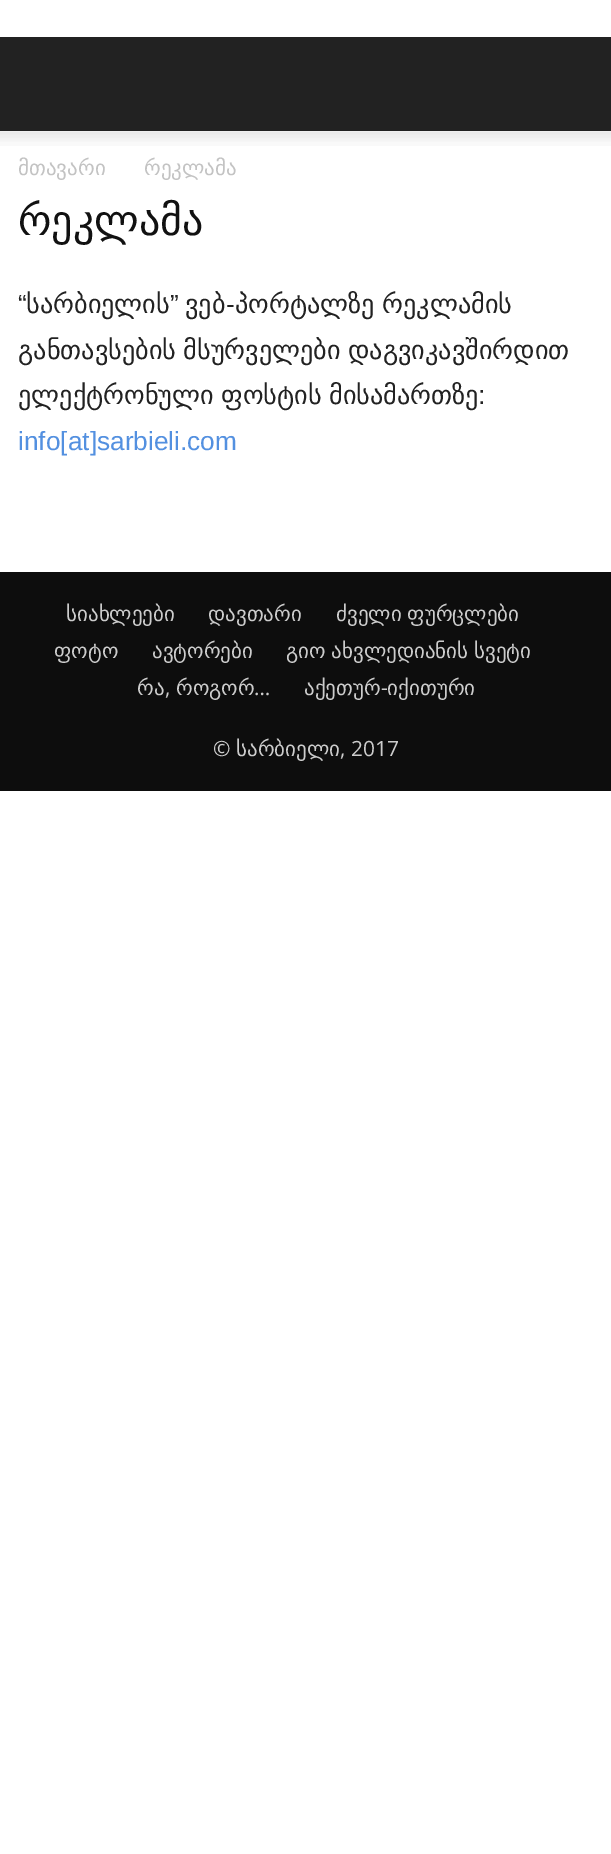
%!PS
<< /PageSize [611 1854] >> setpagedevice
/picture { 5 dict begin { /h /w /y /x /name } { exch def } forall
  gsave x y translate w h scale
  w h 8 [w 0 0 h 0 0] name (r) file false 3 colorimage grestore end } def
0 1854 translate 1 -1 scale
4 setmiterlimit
1 setgray
0 0 611 1854 rectfill
0.133 setgray
0 37 611 94 rectfill
(img1.rgb) 0 131 611 15 picture
/DejaVuSans-Regular [21 0 0 -21 0 0] selectfont
0.765 setgray
18 175 moveto (მთავარი) show
144 175 moveto (რეკლამა) show
/DejaVuSans-Regular [42 0 0 -42 0 0] selectfont
0.067 setgray
18 235 moveto (რეკლამა) show
/LiberationSans-Regular [26.25 0 0 -26.25 0 0] selectfont
0.133 setgray
18 313 moveto (“) show
/DejaVuSans-Regular [26.25 0 0 -26.25 0 0] selectfont
26 313 moveto (სარბიელის) show
/LiberationSans-Regular [26.25 0 0 -26.25 0 0] selectfont
170 313 moveto (”) show
/DejaVuSans-Regular [26.25 0 0 -26.25 0 0] selectfont
185 313 moveto (ვებ) show
235 313 moveto -1 0 32 (პორტალზე რეკლამის) widthshow
/LiberationSans-Regular [26.25 0 0 -26.25 0 0] selectfont
226 313 moveto (-) show
/DejaVuSans-Regular [26.25 0 0 -26.25 0 0] selectfont
18 359 moveto -1 0 32 (განთავსების მსურველები დაგვიკავშირდით) widthshow
18 404 moveto -1 0 32 (ელექტრონული ფოსტის მისამართზე) widthshow
/LiberationSans-Regular [26.25 0 0 -26.25 0 0] selectfont
478 404 moveto (:) show
0.325 0.565 0.878 setrgbcolor
18 450 moveto (info[at]sarbieli.com) show
0.051 setgray
0 572 611 219 rectfill
/DejaVuSans-Regular [21 0 0 -21 0 0] selectfont
0.8 setgray
66 621 moveto (სიახლეები) show
208 621 moveto (დავთარი) show
336 621 moveto -1 0 32 (ძველი ფურცლები) widthshow
54 658 moveto (ფოტო) show
152 658 moveto (ავტორები) show
286 658 moveto -1 0 32 (გიო ახვლედიანის სვეტი) widthshow
137 695 moveto (რა) show
/OpenSans-Regular [21 0 0 -21 0 0] selectfont
165 695 moveto (,) show
/DejaVuSans-Regular [21 0 0 -21 0 0] selectfont
176 695 moveto (როგორ) show
/OpenSans-Regular [21 0 0 -21 0 0] selectfont
254 695 moveto (…) show
/DejaVuSans-Regular [21 0 0 -21 0 0] selectfont
304 695 moveto (აქეთურ იქითური) show
/OpenSans-Regular [21 0 0 -21 0 0] selectfont
381 695 moveto (-) show
213 756 moveto (©) show
/DejaVuSans-Regular [21 0 0 -21 0 0] selectfont
236 756 moveto (სარბიელი) show
/OpenSans-Regular [21 0 0 -21 0 0] selectfont
340 756 moveto (, 2017) show
showpage
